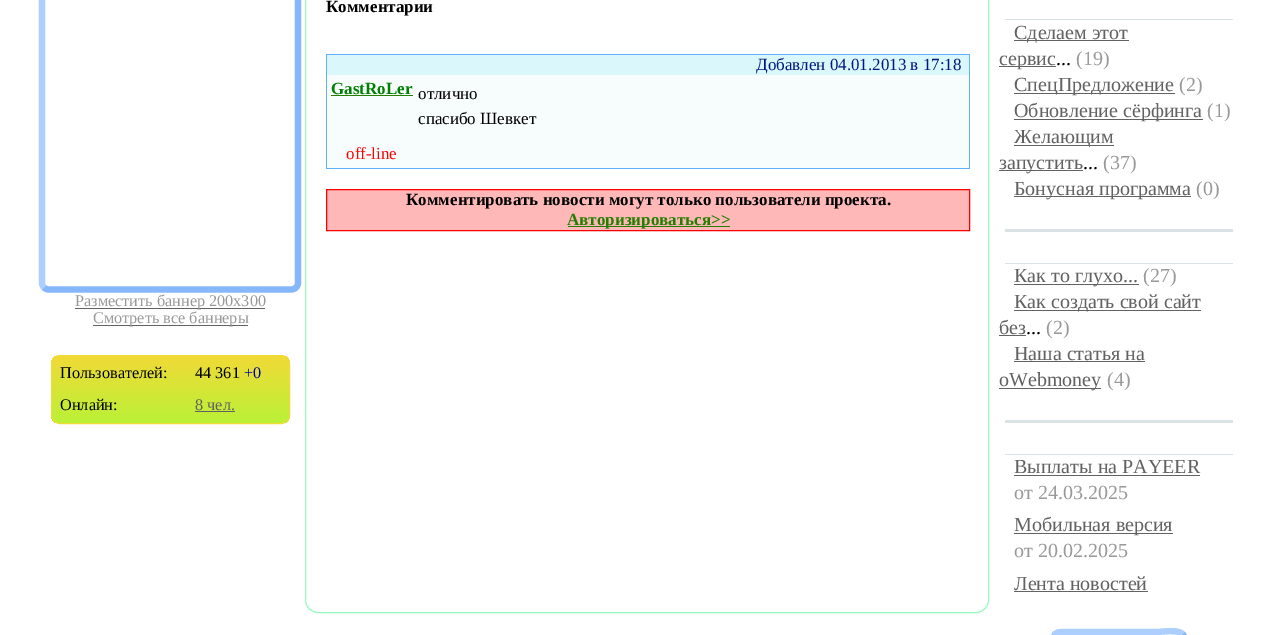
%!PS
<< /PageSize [1277 635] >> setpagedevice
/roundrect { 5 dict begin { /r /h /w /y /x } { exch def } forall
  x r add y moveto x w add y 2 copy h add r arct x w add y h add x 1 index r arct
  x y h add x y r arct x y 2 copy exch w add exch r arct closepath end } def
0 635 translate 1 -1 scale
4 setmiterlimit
1 setgray
0 0 1277 635 rectfill
0.525 0.718 0.984 setrgbcolor
6.2 setlinewidth
newpath 296 -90 moveto 297.5 -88.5 298 -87 298 -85 curveto 298 282.5 lineto 298 284.5 297.5 286 296 287.5 curveto 295 288.5 293 289.5 291 289.5 curveto 49 289.5 lineto 47 289.5 45 288.5 44 287.5 curveto stroke
0.675 0.812 1 setrgbcolor
newpath 44 287.5 moveto 42.5 286 42 284.5 42 282.5 curveto 42 -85 lineto 42 -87 42.5 -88.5 44 -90 curveto 45 -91 47 -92 49 -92 curveto 291 -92 lineto 293 -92 295 -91 296 -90 curveto stroke
0.384 setgray
75 308 190 1 rectfill
/LiberationSerif-Regular [16.25 0 0 -16.25 0 0] selectfont
0.6 setgray
75 306 moveto (Разместить баннер 200x300) show
0.384 setgray
93 325 155 1 rectfill
0.6 setgray
93 323 moveto (Смотреть все баннеры) show
gsave
51 355 239 69 9 roundrect clip newpath
gsave newpath 51 356 moveto 290 356 lineto 290 423 lineto 51 423 lineto closepath clip newpath
<< /ShadingType 2 /ColorSpace /DeviceRGB /Coords [171 423 171 356] /Extend [true true] /Function << /FunctionType 2 /Domain [0 1] /C0 [0.729 0.945 0.212] /C1 [0.945 0.855 0.212] /N 1 >> >> shfill grestore
grestore
0.945 0.855 0.212 setrgbcolor
1 setlinewidth
51.5 355.5 238 68 8.5 roundrect stroke
0 setgray
60 378 moveto (Пользователей:) show
195 378 moveto (44 361) show
0 0 0.6 setrgbcolor
244 378 moveto (+0) show
0 setgray
60 410 moveto (Онлайн:) show
0.384 setgray
195 410 moveto (8 чел.) show
195 411 40 1 rectfill
0.596 0.98 0.741 setrgbcolor
305.5 -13.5 683 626 12.5 roundrect stroke
/LiberationSerif-Bold [17 0 0 -17 0 0] selectfont
0 setgray
326 12 moveto (Комментарии) show
0.855 0.973 0.984 setrgbcolor
327 55 642 20 rectfill
0.38 0.686 0.992 setrgbcolor
326 54 644 1 rectfill
969 54 1 115 rectfill
326 54 1 21 rectfill
/LiberationSerif-Regular [17 0 0 -17 0 0] selectfont
0 0.094 0.498 setrgbcolor
756 70 moveto (Добавлен 04.01.2013 в 17:18) show
0.969 0.988 0.988 setrgbcolor
327 75 642 93 rectfill
0.38 0.686 0.992 setrgbcolor
326 168 644 1 rectfill
326 75 1 94 rectfill
/LiberationSerif-Bold [17 0 0 -17 0 0] selectfont
0 0.502 0 setrgbcolor
331 94 moveto (GastRoLer) show
0.141 0.498 0 setrgbcolor
331 95 82 1 rectfill
/LiberationSerif-Regular [17 0 0 -17 0 0] selectfont
1 0 0 setrgbcolor
346 159 moveto (off-line) show
0 setgray
418 99 moveto (отлично) show
418 124 moveto (спасибо Шевкет) show
1 0.722 0.722 setrgbcolor
newpath 326.5 189.5 moveto 969.5 189.5 lineto 969.5 230.5 lineto 326.5 230.5 lineto closepath gsave fill grestore
1 0 0 setrgbcolor
stroke
/LiberationSerif-Bold [17 0 0 -17 0 0] selectfont
0 setgray
406 205 moveto (Комментировать новости могут только пользователи проекта.) show
0.141 0.498 0 setrgbcolor
568 226 162 1 rectfill
567 225 moveto (Авторизироваться>>) show
0.855 0.886 0.902 setrgbcolor
1005 19 228 1 rectfill
0.384 setgray
1014 40 115 1 rectfill
/LiberationSerif-Regular [20 0 0 -20 0 0] selectfont
1014 39 moveto (Сделаем этот) show
999 66 57 1 rectfill
999 65 moveto (сервис) show
0 setgray
1056 65 moveto (...) show
0.6 setgray
1076 65 moveto (\(19\)) show
0.384 setgray
1014 93 161 1 rectfill
1014 91 moveto (СпецПредложение) show
0.6 setgray
1179 91 moveto (\(2\)) show
0.384 setgray
1014 119 189 1 rectfill
1014 117 moveto (Обновление сёрфинга) show
0.6 setgray
1207 117 moveto (\(1\)) show
0.384 setgray
1014 145 100 1 rectfill
1014 143 moveto (Желающим) show
999 170 84 1 rectfill
999 169 moveto (запустить) show
0 setgray
1083 169 moveto (...) show
0.6 setgray
1103 169 moveto (\(37\)) show
0.384 setgray
1014 196 177 1 rectfill
1014 195 moveto (Бонусная программа) show
0.6 setgray
1196 195 moveto (\(0\)) show
0.855 0.886 0.902 setrgbcolor
1005 229 228 3 rectfill
1005 263 228 1 rectfill
0.384 setgray
1014 284 125 1 rectfill
1014 282 moveto (Как то глухо...) show
0.6 setgray
1143 282 moveto (\(27\)) show
0.384 setgray
1014 310 187 1 rectfill
1014 308 moveto (Как создать свой сайт) show
999 334 moveto (без) show
999 335 27 1 rectfill
0 setgray
1026 334 moveto (...) show
0.6 setgray
1046 334 moveto (\(2\)) show
0.384 setgray
1014 360 moveto (Наша статья на) show
1014 361 131 1 rectfill
999 388 102 1 rectfill
999 386 moveto (oWebmoney) show
0.6 setgray
1107 386 moveto (\(4\)) show
0.855 0.886 0.902 setrgbcolor
1005 420 228 3 rectfill
1005 454 228 1 rectfill
0.384 setgray
1014 473 moveto (Выплаты на PAYEER) show
1014 475 186 1 rectfill
0.6 setgray
1014 499 moveto (от 24.03.2025) show
0.384 setgray
1014 533 159 1 rectfill
1014 531 moveto (Мобильная версия) show
0.6 setgray
1014 557 moveto (от 20.02.2025) show
0.384 setgray
1014 590 moveto (Лента новостей) show
1014 591 134 1 rectfill
0.525 0.718 0.984 setrgbcolor
6.2 setlinewidth
newpath 1182.5 634 moveto 1187.5 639 1184.5 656 1184.5 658.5 curveto 1184.5 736.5 lineto 1184.5 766.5 1188 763 1158 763 curveto 1079.5 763 lineto 1077 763 1060 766 1055 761 curveto stroke
0.675 0.812 1 setrgbcolor
newpath 1055 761 moveto 1050 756 1053 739 1053 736.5 curveto 1053 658.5 lineto 1053 628.5 1049.5 632 1079.5 632 curveto 1158 632 lineto 1160.5 632 1177.5 629 1182.5 634 curveto stroke
showpage
